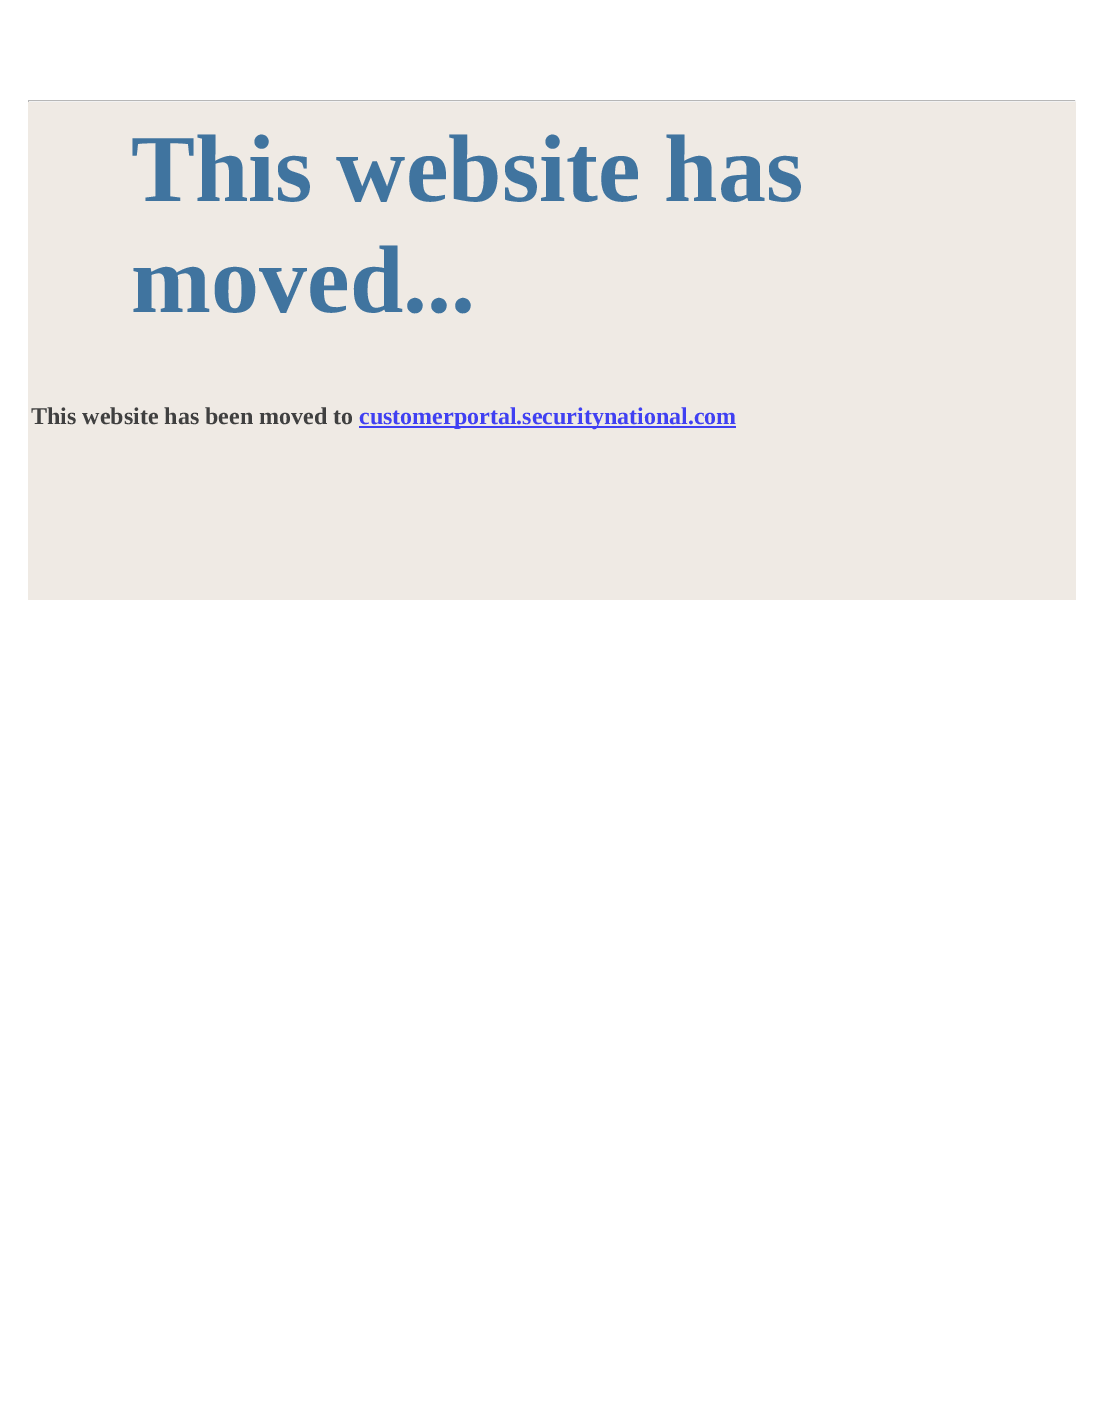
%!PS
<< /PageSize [1119 1421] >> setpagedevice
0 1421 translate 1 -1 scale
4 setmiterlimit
1 setgray
0 0 1119 1421 rectfill
0.937 0.918 0.894 setrgbcolor
28 102 1048 498 rectfill
0.718 setgray
28 100 1048 1 rectfill
0.949 setgray
1075 100 1 2 rectfill
28 101 1048 1 rectfill
0.718 setgray
28 100 1 2 rectfill
/LiberationSerif-Bold [96 0 0 -96 0 0] selectfont
0.251 0.455 0.624 setrgbcolor
131 201 moveto (This website has) show
131 312 moveto (moved...) show
/LiberationSerif-Bold [24 0 0 -24 0 0] selectfont
0.251 setgray
31 424 moveto (This website has been moved to) show
0.251 0.251 0.949 setrgbcolor
359 426 377 2 rectfill
359 424 moveto (customerportal.securitynational.com) show
showpage
